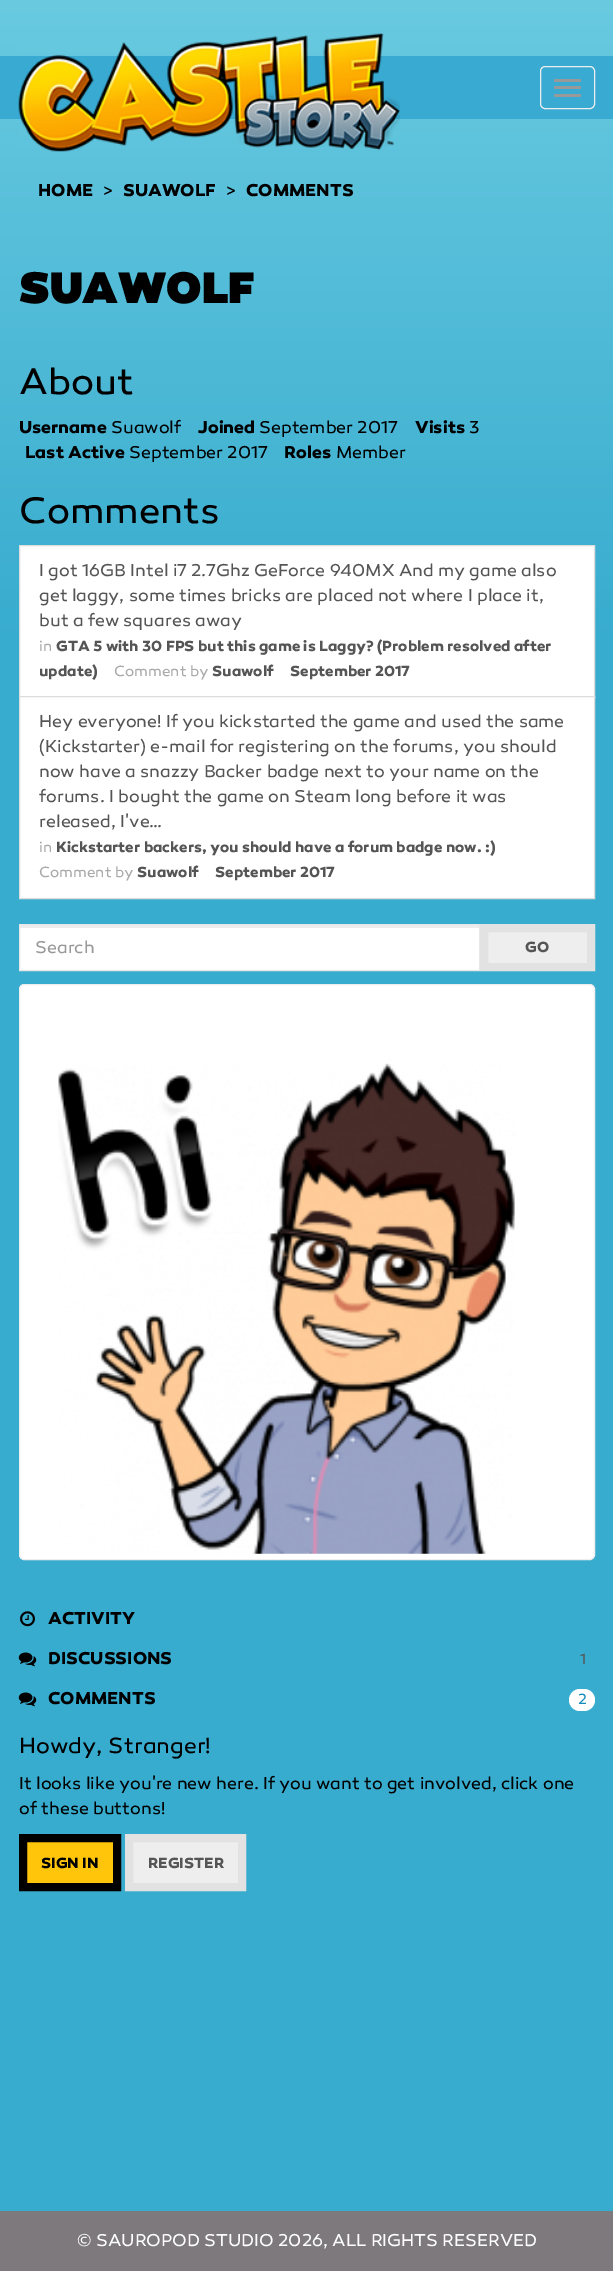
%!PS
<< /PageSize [613 2271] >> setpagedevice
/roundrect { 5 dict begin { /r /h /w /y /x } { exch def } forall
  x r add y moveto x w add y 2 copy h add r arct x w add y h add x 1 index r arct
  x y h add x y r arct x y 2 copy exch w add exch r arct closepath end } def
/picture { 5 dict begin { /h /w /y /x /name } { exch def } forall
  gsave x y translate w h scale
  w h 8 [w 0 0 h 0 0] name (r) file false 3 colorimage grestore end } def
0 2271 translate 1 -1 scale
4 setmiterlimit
1 setgray
0 0 613 2271 rectfill
gsave newpath 0 0 moveto 613 0 lineto 613 2211 lineto 0 2211 lineto closepath clip newpath
<< /ShadingType 2 /ColorSpace /DeviceRGB /Coords [307 0 307 2271] /Extend [true true] /Function << /FunctionType 3 /Domain [0 1] /Functions [<< /FunctionType 2 /Domain [0 1] /C0 [0.412 0.792 0.878] /C1 [0.22 0.675 0.812] /N 1 >> << /FunctionType 2 /Domain [0 1] /C0 [0.22 0.675 0.812] /C1 [0.22 0.675 0.812] /N 1 >>] /Bounds [0.28] /Encode [0 1 0 1] >> >> shfill grestore
0.224 0.671 0.824 setrgbcolor
0 56 613 63 rectfill
(img1.rgb) 18 33 382 119 picture
0.933 setgray
540.5 66.5 54 42 4.5 roundrect stroke
0.6 setgray
554 79 27 3 1.5 roundrect fill
554 86 27 3 1.5 roundrect fill
554 94 27 3 1.5 roundrect fill
/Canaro-Bold [17.5 0 0 -17.5 0 0] selectfont
0 setgray
38 196 moveto (HOME) show
/Canaro-Regular [17.5 0 0 -17.5 0 0] selectfont
103 196 moveto (>) show
/Canaro-Bold [17.5 0 0 -17.5 0 0] selectfont
123 196 moveto (SUAWOLF) show
/Canaro-Regular [17.5 0 0 -17.5 0 0] selectfont
226 196 moveto (>) show
/Canaro-Bold [17.5 0 0 -17.5 0 0] selectfont
246 196 moveto (COMMENTS) show
/Canaro-Black [45 0 0 -45 0 0] selectfont
19 303 moveto (SUAWOLF) show
/Canaro-Regular [37.5 0 0 -37.5 0 0] selectfont
19 394 moveto (About) show
/Canaro-Bold [17.5 0 0 -17.5 0 0] selectfont
19 433 moveto (Username) show
/Canaro-Regular [17.5 0 0 -17.5 0 0] selectfont
111 433 moveto (Suawolf) show
/Canaro-Bold [17.5 0 0 -17.5 0 0] selectfont
198 433 moveto (Joined) show
/Canaro-Regular [17.5 0 0 -17.5 0 0] selectfont
259 433 moveto (September 2017) show
/Canaro-Bold [17.5 0 0 -17.5 0 0] selectfont
415 433 moveto (Visits) show
/Canaro-Regular [17.5 0 0 -17.5 0 0] selectfont
469 433 moveto (3) show
/Canaro-Bold [17.5 0 0 -17.5 0 0] selectfont
25 458 moveto (Last Active) show
/Canaro-Regular [17.5 0 0 -17.5 0 0] selectfont
129 458 moveto (September 2017) show
/Canaro-Bold [17.5 0 0 -17.5 0 0] selectfont
284 458 moveto (Roles) show
/Canaro-Regular [17.5 0 0 -17.5 0 0] selectfont
336 458 moveto (Member) show
/Canaro-Regular [37.5 0 0 -37.5 0 0] selectfont
19 523 moveto (Comments) show
1 setgray
20 546 574 150 rectfill
0.867 setgray
19.5 545.5 575 152 rectstroke
/Canaro-Regular [17.5 0 0 -17.5 0 0] selectfont
0.333 setgray
39 576 moveto (I got 16GB Intel i7 2.7Ghz GeForce 940MX And my game also) show
39 601 moveto (get laggy, some times bricks are placed not where I place it,) show
39 626 moveto (but a few squares away) show
/Canaro-Regular [15 0 0 -15 0 0] selectfont
0.667 setgray
39 651 moveto (in) show
/Canaro-Bold [15 0 0 -15 0 0] selectfont
0.333 setgray
56 651 moveto (GTA 5 with 30 FPS but this game is Laggy? \(Problem resolved after) show
39 676 moveto (update\)) show
/Canaro-Regular [15 0 0 -15 0 0] selectfont
0.667 setgray
114 676 moveto (Comment by) show
/Canaro-Bold [15 0 0 -15 0 0] selectfont
0.333 setgray
212 676 moveto (Suawolf) show
290 676 moveto (September 2017) show
1 setgray
newpath 19.5 696.5 moveto 594.5 696.5 lineto 594.5 898.5 lineto 19.5 898.5 lineto closepath gsave fill grestore
0.867 setgray
stroke
/Canaro-Regular [17.5 0 0 -17.5 0 0] selectfont
0.333 setgray
39 727 moveto (Hey everyone! If you kickstarted the game and used the same) show
39 752 moveto (\(Kickstarter\) e-mail for registering on the forums, you should) show
39 777 moveto (now have a snazzy Backer badge next to your name on the) show
39 802 moveto (forums. I bought the game on Steam long before it was) show
39 827 moveto (released, I've…) show
/Canaro-Regular [15 0 0 -15 0 0] selectfont
0.667 setgray
39 852 moveto (in) show
/Canaro-Bold [15 0 0 -15 0 0] selectfont
0.333 setgray
56 852 moveto (Kickstarter backers, you should have a forum badge now. :\)) show
/Canaro-Regular [15 0 0 -15 0 0] selectfont
0.667 setgray
39 877 moveto (Comment by) show
/Canaro-Bold [15 0 0 -15 0 0] selectfont
0.333 setgray
137 877 moveto (Suawolf) show
215 877 moveto (September 2017) show
1 setgray
20 928 459 42 rectfill
0.925 setgray
20 925 459 3 rectfill
0.906 setgray
19.5 924.5 460 46 rectstroke
/Canaro-Regular [17.5 0 0 -17.5 0 0] selectfont
0.6 setgray
35 953 moveto (Search) show
0.933 setgray
newpath 484 928 moveto 591 928 lineto 591 967 lineto 484 967 lineto closepath gsave fill grestore
0.886 setgray
8 setlinewidth
stroke
/Canaro-Bold [15 0 0 -15 0 0] selectfont
0.333 setgray
525 952 moveto (GO) show
1 setgray
19.5 984.5 575 575 4.5 roundrect gsave fill grestore
0.933 setgray
1 setlinewidth
stroke
(img2.rgb) 58 1063 457 491 picture
(img3.rgb) 20 1611 15 16 picture
/Canaro-Bold [17.5 0 0 -17.5 0 0] selectfont
0 setgray
48 1624 moveto (ACTIVITY) show
(img4.rgb) 18 1652 19 15 picture
48 1664 moveto (DISCUSSIONS) show
/Canaro-Regular [15 0 0 -15 0 0] selectfont
0.333 setgray
580 1664 moveto (1) show
(img4.rgb) 18 1692 19 15 picture
/Canaro-Bold [17.5 0 0 -17.5 0 0] selectfont
0 setgray
48 1704 moveto (COMMENTS) show
1 setgray
569 1689 26 22 11 roundrect fill
/Canaro-Regular [15 0 0 -15 0 0] selectfont
0.082 0.549 0.729 setrgbcolor
578 1704 moveto (2) show
/Canaro-Regular [22.5 0 0 -22.5 0 0] selectfont
0 setgray
19 1753 moveto (Howdy, Stranger!) show
/Canaro-Regular [17.5 0 0 -17.5 0 0] selectfont
19 1789 moveto (It looks like you're new here. If you want to get involved, click one) show
19 1814 moveto (of these buttons!) show
0.996 0.773 0.039 setrgbcolor
newpath 23 1838 moveto 117 1838 lineto 117 1887 lineto 23 1887 lineto closepath gsave fill grestore
0 setgray
8 setlinewidth
stroke
/Canaro-Bold [15 0 0 -15 0 0] selectfont
41 1868 moveto (SIGN IN) show
0.933 setgray
newpath 129 1838 moveto 242 1838 lineto 242 1887 lineto 129 1887 lineto closepath gsave fill grestore
0.886 setgray
stroke
0.333 setgray
148 1868 moveto (REGISTER) show
0.494 0.475 0.486 setrgbcolor
0 2211 613 60 rectfill
/Canaro-Regular [17.5 0 0 -17.5 0 0] selectfont
1 setgray
77 2246 moveto (© SAUROPOD STUDIO 2026, ALL RIGHTS RESERVED) show
showpage
